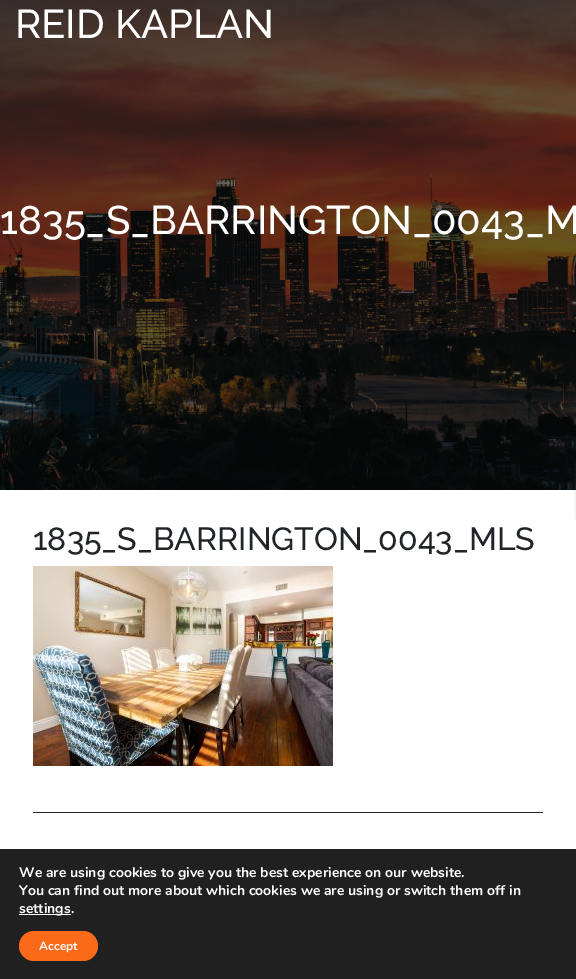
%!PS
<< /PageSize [576 979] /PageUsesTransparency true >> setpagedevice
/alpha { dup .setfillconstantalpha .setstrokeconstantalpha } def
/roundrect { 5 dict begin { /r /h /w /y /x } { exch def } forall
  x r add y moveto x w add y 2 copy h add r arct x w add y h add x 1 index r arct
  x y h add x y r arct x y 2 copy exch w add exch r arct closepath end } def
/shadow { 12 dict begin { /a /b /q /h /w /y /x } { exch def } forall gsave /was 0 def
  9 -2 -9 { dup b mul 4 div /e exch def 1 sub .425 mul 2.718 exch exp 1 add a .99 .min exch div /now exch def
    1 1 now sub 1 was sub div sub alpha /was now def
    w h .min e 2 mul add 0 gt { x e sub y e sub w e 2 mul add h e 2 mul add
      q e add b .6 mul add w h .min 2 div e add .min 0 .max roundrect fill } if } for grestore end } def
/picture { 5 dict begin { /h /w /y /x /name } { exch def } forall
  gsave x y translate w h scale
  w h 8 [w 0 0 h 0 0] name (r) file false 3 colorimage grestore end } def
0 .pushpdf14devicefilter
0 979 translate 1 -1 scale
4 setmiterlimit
1 setgray
0 0 576 979 rectfill
(img1.rgb) 0 0 576 490 picture
/Raleway-Medium [40 0 0 -40 0 0] selectfont
15 38 moveto (REID KAPLAN) show
0 234 moveto (1835_S_BARRINGTON_0043_M) show
0.467 setgray
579 464 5 54 0 2.5 1 shadow
/Raleway-Medium [32 0 0 -32 0 0] selectfont
0.129 0.145 0.161 setrgbcolor
33 550 moveto (1835_S_BARRINGTON_0043_MLS) show
(img2.rgb) 33 566 300 200 picture
33 812 510 1 rectfill
0.125 setgray
0 849 576 130 rectfill
/Nunito-Bold [14 0 0 -14 0 0] selectfont
1 setgray
19 877 moveto (We are using cookies to give you the best experience on our website.) show
19 895 moveto (You can find out more about which cookies we are using or switch them off in) show
19 914 52 1 rectfill
19 913 moveto (settings.) show
0.984 0.416 0.098 setrgbcolor
19 931 79 30 15 roundrect fill
/Nunito-Bold [12 0 0 -12 0 0] selectfont
1 setgray
39 950 moveto (Accept) show
.poppdf14devicefilter showpage
